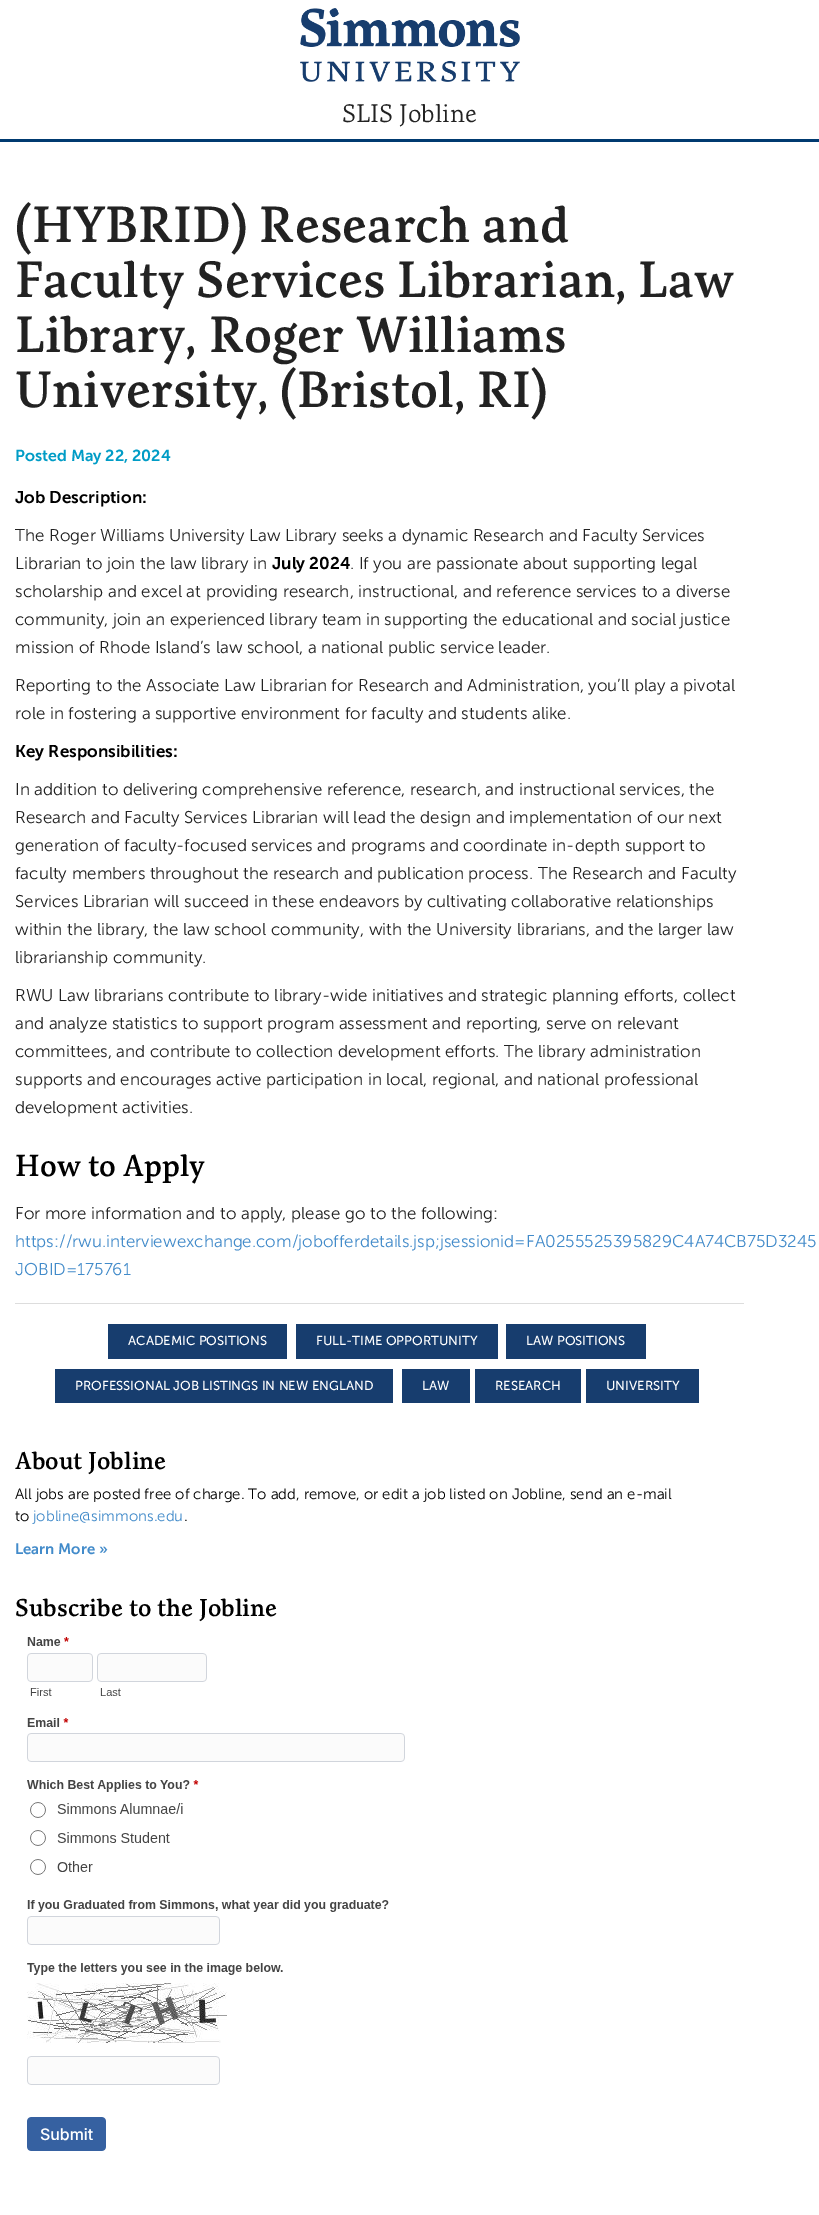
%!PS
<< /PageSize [819 2215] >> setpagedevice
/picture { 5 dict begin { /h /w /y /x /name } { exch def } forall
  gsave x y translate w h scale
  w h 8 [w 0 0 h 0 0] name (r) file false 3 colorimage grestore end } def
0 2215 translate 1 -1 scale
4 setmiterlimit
1 setgray
0 0 819 2215 rectfill
(img1.rgb) 300 8 220 74 picture
0 0.227 0.439 setrgbcolor
0 139 819 3 rectfill
/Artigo-Regular [25 0 0 -25 0 0] selectfont
0.133 setgray
342 122 moveto (SLIS Jobline) show
/Artigo-SemiBold [50 0 0 -50 0 0] selectfont
15 242 moveto (\(HYBRID\) Research and) show
15 297 moveto (Faculty Services Librarian, Law) show
15 352 moveto (Library, Roger Williams) show
15 407 moveto (University, \(Bristol, RI\)) show
/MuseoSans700-SemiBold [16 0 0 -16 0 0] selectfont
0 0.612 0.776 setrgbcolor
15 461 moveto (Posted May 22, 2024) show
/MuseoSans700-SemiBold [17 0 0 -17 0 0] selectfont
0 setgray
15 503 moveto (Job Description:) show
/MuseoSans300-Light [17 0 0 -17 0 0] selectfont
0.133 setgray
15 541 moveto (The Roger Williams University Law Library seeks a dynamic Research and Faculty Services) show
15 569 moveto (Librarian to join the law library in) show
/MuseoSans700-SemiBold [17 0 0 -17 0 0] selectfont
0 setgray
272 569 moveto (July 2024) show
/MuseoSans300-Light [17 0 0 -17 0 0] selectfont
0.133 setgray
350 569 moveto (. If you are passionate about supporting legal) show
15 597 moveto (scholarship and excel at providing research, instructional, and reference services to a diverse) show
15 625 moveto (community, join an experienced library team in supporting the educational and social justice) show
15 653 moveto (mission of Rhode Island’s law school, a national public service leader.) show
15 691 moveto (Reporting to the Associate Law Librarian for Research and Administration, you’ll play a pivotal) show
15 719 moveto (role in fostering a supportive environment for faculty and students alike.) show
/MuseoSans700-SemiBold [17 0 0 -17 0 0] selectfont
0 setgray
15 757 moveto (Key Responsibilities:) show
/MuseoSans300-Light [17 0 0 -17 0 0] selectfont
0.133 setgray
15 795 moveto (In addition to delivering comprehensive reference, research, and instructional services, the) show
15 823 moveto (Research and Faculty Services Librarian will lead the design and implementation of our next) show
15 851 moveto (generation of faculty-focused services and programs and coordinate in-depth support to) show
15 879 moveto (faculty members throughout the research and publication process. The Research and Faculty) show
15 907 moveto (Services Librarian will succeed in these endeavors by cultivating collaborative relationships) show
15 935 moveto (within the library, the law school community, with the University librarians, and the larger law) show
15 963 moveto (librarianship community.) show
15 1001 moveto (RWU Law librarians contribute to library-wide initiatives and strategic planning efforts, collect) show
15 1029 moveto (and analyze statistics to support program assessment and reporting, serve on relevant) show
15 1057 moveto (committees, and contribute to collection development efforts. The library administration) show
15 1085 moveto (supports and encourages active participation in local, regional, and national professional) show
15 1113 moveto (development activities.) show
/Artigo-SemiBold [30 0 0 -30 0 0] selectfont
0 setgray
15 1176 moveto (How to Apply) show
/MuseoSans300-Light [17 0 0 -17 0 0] selectfont
0.133 setgray
15 1219 moveto (For more information and to apply, please go to the following:) show
0.259 0.545 0.792 setrgbcolor
15 1247 moveto (https://rwu.interviewexchange.com/jobofferdetails.jsp;jsessionid=FA0255525395829C4A74CB75D3245) show
15 1275 moveto (JOBID=175761) show
0.867 setgray
15 1303 729 1 rectfill
0.09 0.239 0.431 setrgbcolor
108 1324 179 35 rectfill
/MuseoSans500-Regular [13 0 0 -13 0 0] selectfont
1 setgray
128 1345 moveto (ACADEMIC POSITIONS) show
0.09 0.239 0.431 setrgbcolor
296 1324 202 35 rectfill
1 setgray
316 1345 moveto (FULL-TIME OPPORTUNITY) show
0.09 0.239 0.431 setrgbcolor
506 1324 140 35 rectfill
1 setgray
526 1345 moveto (LAW POSITIONS) show
0.09 0.239 0.431 setrgbcolor
55 1369 338 34 rectfill
1 setgray
75 1390 moveto (PROFESSIONAL JOB LISTINGS IN NEW ENGLAND) show
0.09 0.239 0.431 setrgbcolor
402 1369 68 34 rectfill
1 setgray
422 1390 moveto (LAW) show
0.09 0.239 0.431 setrgbcolor
475 1369 106 34 rectfill
1 setgray
495 1390 moveto (RESEARCH) show
0.09 0.239 0.431 setrgbcolor
586 1369 113 34 rectfill
1 setgray
606 1390 moveto (UNIVERSITY) show
/Artigo-SemiBold [24 0 0 -24 0 0] selectfont
0 setgray
15 1469 moveto (About Jobline) show
/MuseoSans300-Light [15 0 0 -15 0 0] selectfont
15 1499 moveto (All jobs are posted free of charge. To add, remove, or edit a job listed on Jobline, send an e-mail) show
15 1521 moveto (to) show
0.259 0.545 0.792 setrgbcolor
33 1521 moveto (jobline@simmons.edu) show
0 setgray
184 1521 moveto (.) show
/MuseoSans700-SemiBold [15 0 0 -15 0 0] selectfont
0.259 0.545 0.792 setrgbcolor
15 1554 moveto (Learn More ») show
/Artigo-SemiBold [24 0 0 -24 0 0] selectfont
0 setgray
15 1616 moveto (Subscribe to the Jobline) show
(img2.rgb) 27 1637 378 514 picture
showpage
